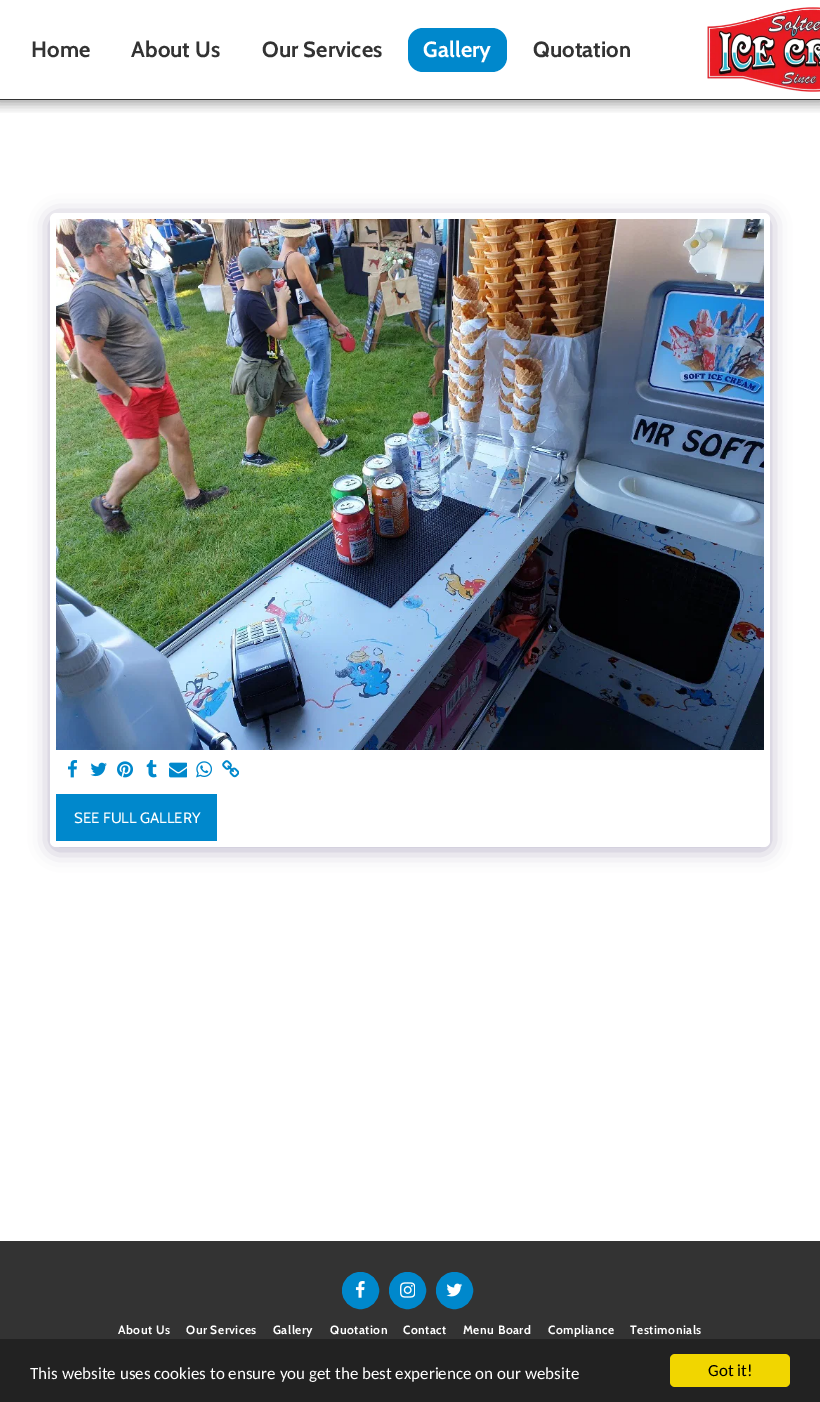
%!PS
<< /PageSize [820 1402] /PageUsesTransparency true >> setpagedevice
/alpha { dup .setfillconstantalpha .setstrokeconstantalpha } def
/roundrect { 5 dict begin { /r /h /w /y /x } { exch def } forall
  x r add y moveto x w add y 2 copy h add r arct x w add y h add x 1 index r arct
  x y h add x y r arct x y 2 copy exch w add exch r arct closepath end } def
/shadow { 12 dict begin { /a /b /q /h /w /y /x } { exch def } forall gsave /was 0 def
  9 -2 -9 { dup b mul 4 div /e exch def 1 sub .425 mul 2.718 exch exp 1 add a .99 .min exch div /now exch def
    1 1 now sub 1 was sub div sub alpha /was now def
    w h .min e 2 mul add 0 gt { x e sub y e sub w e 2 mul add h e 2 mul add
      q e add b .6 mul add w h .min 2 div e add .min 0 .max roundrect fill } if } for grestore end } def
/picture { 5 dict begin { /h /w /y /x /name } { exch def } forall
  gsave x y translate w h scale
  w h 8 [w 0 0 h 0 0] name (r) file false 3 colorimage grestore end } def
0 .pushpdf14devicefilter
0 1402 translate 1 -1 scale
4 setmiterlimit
1 setgray
0 0 820 1402 rectfill
gsave
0 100 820 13 rectclip
0 setgray
-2 0 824 104 0 6 0.35 shadow
grestore
0.2 setgray
0 99 820 1 rectfill
/Cabin-Bold [22 0 0 -22 0 0] selectfont
31 57 moveto 0.1 0 (Home) ashow
131 57 moveto 0.1 0 (About Us) ashow
262 57 moveto 0.1 0 (Our Services) ashow
0 0.533 0.8 setrgbcolor
408 28 99 44 15 roundrect fill
1 setgray
423 57 moveto 0.1 0 (Gallery) ashow
0.2 setgray
533 57 moveto 0.1 0 (Quotation) ashow
(img1.rgb) 707 7 113 85 picture
0.302 0.247 0.478 setrgbcolor
50 216 720 634 6 10 0.4 shadow
1 setgray
50 213 720 634 6 roundrect fill
(img2.rgb) 56 219 708 531 picture
(img3.rgb) 68 760 10 18 picture
(img4.rgb) 90 762 17 15 picture
(img5.rgb) 117 761 16 17 picture
(img6.rgb) 146 760 11 18 picture
(img7.rgb) 169 762 18 16 picture
(img8.rgb) 196 761 16 17 picture
(img9.rgb) 222 760 17 18 picture
0 0.533 0.8 setrgbcolor
56 794 161 47 rectfill
/Cabin-Regular [15 0 0 -15 0 0] selectfont
1 setgray
74 823 moveto (SEE FULL GALLERY) show
0.2 setgray
0 1241 820 98 rectfill
0 0.533 0.8 setrgbcolor
newpath 360.5 1290.5 18 0 360 arc closepath gsave fill grestore
stroke
(img10.rgb) 355 1281 10 17 picture
newpath 407.5 1290.5 18 0 360 arc closepath gsave fill grestore
stroke
(img11.rgb) 400 1282 15 16 picture
newpath 454.5 1290.5 18 0 360 arc closepath gsave fill grestore
stroke
(img12.rgb) 446 1283 17 14 picture
/Cabin-Bold [12 0 0 -12 0 0] selectfont
1 setgray
118 1334 moveto 0.5 0 (About Us) ashow
186 1334 moveto 0.5 0 (Our Services) ashow
273 1334 moveto 0.5 0 (Gallery) ashow
330 1334 moveto 0.5 0 (Quotation) ashow
403 1334 moveto 0.5 0 (Contact) ashow
463 1334 moveto 0.5 0 (Menu Board) ashow
548 1334 moveto 0.5 0 (Compliance) ashow
630 1334 moveto 0.5 0 (Testimonials) ashow
0.133 setgray
0 1339 820 63 rectfill
/Carlito-Regular [17 0 0 -17 0 0] selectfont
1 setgray
30 1379 moveto (This website uses cookies to ensure you get the best experience on our website) show
0.945 0.839 0 setrgbcolor
670 1354 120 33 5 roundrect fill
0 setgray
708 1376 moveto (Got it!) show
.poppdf14devicefilter showpage
